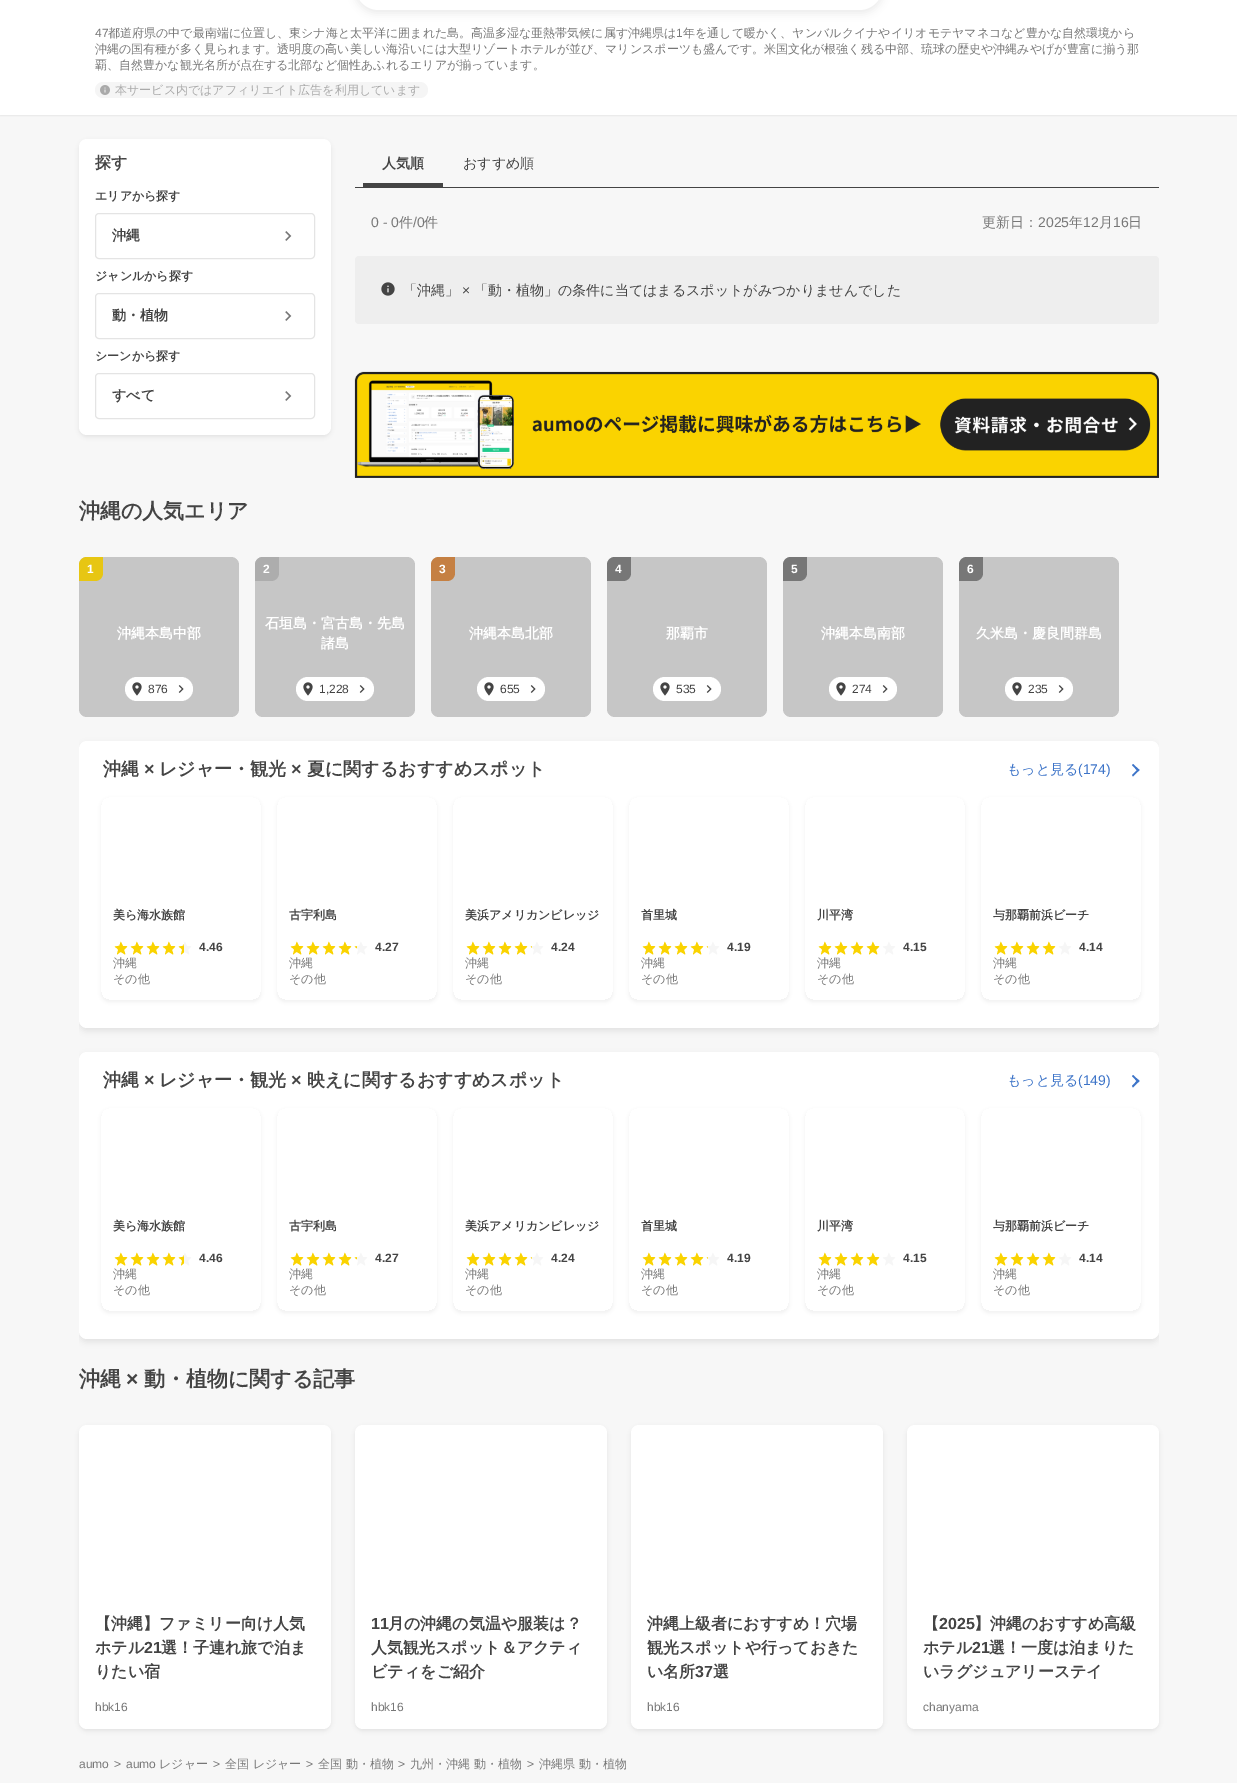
%!PS
<< /PageSize [1237 1783] /PageUsesTransparency true >> setpagedevice
/alpha { dup .setfillconstantalpha .setstrokeconstantalpha } def
/roundrect { 5 dict begin { /r /h /w /y /x } { exch def } forall
  x r add y moveto x w add y 2 copy h add r arct x w add y h add x 1 index r arct
  x y h add x y r arct x y 2 copy exch w add exch r arct closepath end } def
/shadow { 12 dict begin { /a /b /q /h /w /y /x } { exch def } forall gsave /was 0 def
  9 -2 -9 { dup b mul 4 div /e exch def 1 sub .425 mul 2.718 exch exp 1 add a .99 .min exch div /now exch def
    1 1 now sub 1 was sub div sub alpha /was now def
    w h .min e 2 mul add 0 gt { x e sub y e sub w e 2 mul add h e 2 mul add
      q e add b .6 mul add w h .min 2 div e add .min 0 .max roundrect fill } if } for grestore end } def
/picture { 5 dict begin { /h /w /y /x /name } { exch def } forall
  gsave x y translate w h scale
  w h 8 [w 0 0 h 0 0] name (r) file false 3 colorimage grestore end } def
0 .pushpdf14devicefilter
0 1783 translate 1 -1 scale
4 setmiterlimit
0.969 setgray
0 0 1237 1783 rectfill
0 setgray
0 -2 1237 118 0 0.5 0.06 shadow
1 setgray
0 0 1237 115 rectfill
0 setgray
355 -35 528 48 24 4 0.08 shadow
1 setgray
355 -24 528 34 24 roundrect fill
/LiberationSans-Regular [12 0 0 -12 0 0] selectfont
0.467 setgray
95 37 moveto (47) show
/WenQuanYiZenHei-Medium [12 0 0 -12 0 0] selectfont
108 37 moveto (都道府県の中で最南端に位置し、東シナ海と太平洋に囲まれた島。高温多湿な亜熱帯気候に属す沖縄県は) show
/LiberationSans-Regular [12 0 0 -12 0 0] selectfont
676 37 moveto (1) show
/WenQuanYiZenHei-Medium [12 0 0 -12 0 0] selectfont
683 37 moveto (年を通して暖かく、ヤンバルクイナやイリオモテヤマネコなど豊かな自然環境から) show
95 53 moveto (沖縄の国有種が多く見られます。透明度の高い美しい海沿いには大型リゾートホテルが並び、マリンスポーツも盛んです。米国文化が根強く残る中部、琉球の歴史や沖縄みやげが豊富に揃う那) show
95 69 moveto (覇、自然豊かな観光名所が点在する北部など個性あふれるエリアが揃っています。) show
0.961 setgray
95 82 333 16 8 roundrect fill
(img1.rgb) 100 85 10 10 picture
0.667 setgray
115 94 moveto (本サービス内ではアフィリエイト広告を利用しています) show
0 setgray
79 141 252 296 8 2 0.07 shadow
1 setgray
79 139 252 296 8 roundrect fill
/WenQuanYiZenHei-Bold [16 0 0 -16 0 0] selectfont
0.267 setgray
95 168 moveto (探す) show
/WenQuanYiZenHei-Bold [12 0 0 -12 0 0] selectfont
95 200 moveto (エリアから探す) show
0.894 setgray
95.5 213.5 219 45 3.5 roundrect stroke
/WenQuanYiZenHei-Bold [14 0 0 -14 0 0] selectfont
0.267 setgray
112 240 moveto (沖縄) show
(img2.rgb) 285 231 7 10 picture
/WenQuanYiZenHei-Bold [12 0 0 -12 0 0] selectfont
95 280 moveto (ジャンルから探す) show
0.894 setgray
95.5 293.5 219 45 3.5 roundrect stroke
/WenQuanYiZenHei-Bold [14 0 0 -14 0 0] selectfont
0.267 setgray
112 320 moveto (動・植物) show
(img2.rgb) 285 311 7 10 picture
/WenQuanYiZenHei-Bold [12 0 0 -12 0 0] selectfont
95 360 moveto (シーンから探す) show
0.894 setgray
95.5 373.5 219 45 3.5 roundrect stroke
/WenQuanYiZenHei-Bold [14 0 0 -14 0 0] selectfont
0.267 setgray
112 400 moveto (すべて) show
(img2.rgb) 285 391 7 10 picture
355 187 804 1 rectfill
382 168 moveto (人気順) show
363 183 80 4 rectfill
/WenQuanYiZenHei-Medium [14 0 0 -14 0 0] selectfont
463 168 moveto (おすすめ順) show
/LiberationSans-Regular [14 0 0 -14 0 0] selectfont
0.467 setgray
371 227 moveto (0 - 0) show
/WenQuanYiZenHei-Medium [14 0 0 -14 0 0] selectfont
399 227 moveto (件) show
/LiberationSans-Regular [14 0 0 -14 0 0] selectfont
413 227 moveto (/0) show
/WenQuanYiZenHei-Medium [14 0 0 -14 0 0] selectfont
424 227 moveto (件) show
982 227 moveto (更新日：) show
/LiberationSans-Regular [14 0 0 -14 0 0] selectfont
1038 227 moveto (2025) show
/WenQuanYiZenHei-Medium [14 0 0 -14 0 0] selectfont
1069 227 moveto (年) show
/LiberationSans-Regular [14 0 0 -14 0 0] selectfont
1083 227 moveto (12) show
/WenQuanYiZenHei-Medium [14 0 0 -14 0 0] selectfont
1099 227 moveto (月) show
/LiberationSans-Regular [14 0 0 -14 0 0] selectfont
1113 227 moveto (16) show
/WenQuanYiZenHei-Medium [14 0 0 -14 0 0] selectfont
1128 227 moveto (日) show
0.933 setgray
355 256 804 68 4 roundrect fill
(img3.rgb) 381 282 14 14 picture
0.267 setgray
403 295 moveto (「沖縄」) show
/LiberationSans-Regular [14 0 0 -14 0 0] selectfont
462 295 moveto (×) show
/WenQuanYiZenHei-Medium [14 0 0 -14 0 0] selectfont
474 295 moveto (「動・植物」の条件に当てはまるスポットがみつかりませんでした) show
(img4.rgb) 354 371 805 107 picture
/WenQuanYiZenHei-Bold [21 0 0 -21 0 0] selectfont
79 518 moveto (沖縄の人気エリア) show
0.776 setgray
79 557 160 160 8 roundrect fill
0.906 0.776 0.075 setrgbcolor
newpath 87 557 moveto 103 557 lineto 103 573 lineto 103 577.5 99.5 581 95 581 curveto 79 581 lineto 79 565 lineto 79 560.5 82.5 557 87 557 curveto closepath fill
/LiberationSans-Bold [12 0 0 -12 0 0] selectfont
1 setgray
87 573 moveto (1) show
/WenQuanYiZenHei-Bold [14 0 0 -14 0 0] selectfont
117 638 moveto (沖縄本島中部) show
125 677 68 24 12 roundrect fill
(img5.rgb) 132 682 10 14 picture
/LiberationSans-Regular [12 0 0 -12 0 0] selectfont
0.267 setgray
148 693 moveto (876) show
(img6.rgb) 178 685 6 8 picture
0.776 setgray
255 557 160 160 8 roundrect fill
0.678 setgray
newpath 263 557 moveto 279 557 lineto 279 573 lineto 279 577.5 275.5 581 271 581 curveto 255 581 lineto 255 565 lineto 255 560.5 258.5 557 263 557 curveto closepath fill
/LiberationSans-Bold [12 0 0 -12 0 0] selectfont
1 setgray
263 573 moveto (2) show
/WenQuanYiZenHei-Bold [14 0 0 -14 0 0] selectfont
265 628 moveto (石垣島・宮古島・先島) show
321 648 moveto (諸島) show
296 677 78 24 12 roundrect fill
(img5.rgb) 303 682 10 14 picture
/LiberationSans-Regular [12 0 0 -12 0 0] selectfont
0.267 setgray
319 693 moveto (1,228) show
(img6.rgb) 359 685 6 8 picture
0.776 setgray
431 557 160 160 8 roundrect fill
0.773 0.502 0.263 setrgbcolor
newpath 439 557 moveto 455 557 lineto 455 573 lineto 455 577.5 451.5 581 447 581 curveto 431 581 lineto 431 565 lineto 431 560.5 434.5 557 439 557 curveto closepath fill
/LiberationSans-Bold [12 0 0 -12 0 0] selectfont
1 setgray
439 573 moveto (3) show
/WenQuanYiZenHei-Bold [14 0 0 -14 0 0] selectfont
469 638 moveto (沖縄本島北部) show
477 677 68 24 12 roundrect fill
(img5.rgb) 484 682 10 14 picture
/LiberationSans-Regular [12 0 0 -12 0 0] selectfont
0.267 setgray
500 693 moveto (655) show
(img6.rgb) 530 685 6 8 picture
0.776 setgray
607 557 160 160 8 roundrect fill
0.467 setgray
newpath 615 557 moveto 631 557 lineto 631 573 lineto 631 577.5 627.5 581 623 581 curveto 607 581 lineto 607 565 lineto 607 560.5 610.5 557 615 557 curveto closepath fill
/LiberationSans-Bold [12 0 0 -12 0 0] selectfont
1 setgray
615 573 moveto (4) show
/WenQuanYiZenHei-Bold [14 0 0 -14 0 0] selectfont
666 638 moveto (那覇市) show
653 677 68 24 12 roundrect fill
(img5.rgb) 660 682 10 14 picture
/LiberationSans-Regular [12 0 0 -12 0 0] selectfont
0.267 setgray
676 693 moveto (535) show
(img6.rgb) 706 685 6 8 picture
0.776 setgray
783 557 160 160 8 roundrect fill
0.467 setgray
newpath 791 557 moveto 807 557 lineto 807 573 lineto 807 577.5 803.5 581 799 581 curveto 783 581 lineto 783 565 lineto 783 560.5 786.5 557 791 557 curveto closepath fill
/LiberationSans-Bold [12 0 0 -12 0 0] selectfont
1 setgray
791 573 moveto (5) show
/WenQuanYiZenHei-Bold [14 0 0 -14 0 0] selectfont
821 638 moveto (沖縄本島南部) show
829 677 68 24 12 roundrect fill
(img5.rgb) 836 682 10 14 picture
/LiberationSans-Regular [12 0 0 -12 0 0] selectfont
0.267 setgray
852 693 moveto (274) show
(img6.rgb) 882 685 6 8 picture
0.776 setgray
959 557 160 160 8 roundrect fill
0.467 setgray
newpath 967 557 moveto 983 557 lineto 983 573 lineto 983 577.5 979.5 581 975 581 curveto 959 581 lineto 959 565 lineto 959 560.5 962.5 557 967 557 curveto closepath fill
/LiberationSans-Bold [12 0 0 -12 0 0] selectfont
1 setgray
967 573 moveto (6) show
/WenQuanYiZenHei-Bold [14 0 0 -14 0 0] selectfont
976 638 moveto (久米島・慶良間群島) show
1005 677 68 24 12 roundrect fill
(img5.rgb) 1012 682 10 14 picture
/LiberationSans-Regular [12 0 0 -12 0 0] selectfont
0.267 setgray
1028 693 moveto (235) show
(img6.rgb) 1058 685 6 8 picture
gsave
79 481 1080 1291 rectclip
0 setgray
79 744 1080 287 8 3 0.08 shadow
grestore
1 setgray
79 741 1080 287 8 roundrect fill
/WenQuanYiZenHei-Bold [18 0 0 -18 0 0] selectfont
0.267 setgray
103 775 moveto (沖縄) show
/LiberationSans-Bold [18 0 0 -18 0 0] selectfont
144 775 moveto (×) show
/WenQuanYiZenHei-Bold [18 0 0 -18 0 0] selectfont
159 775 moveto (レジャー・観光) show
/LiberationSans-Bold [18 0 0 -18 0 0] selectfont
291 775 moveto (×) show
/WenQuanYiZenHei-Bold [18 0 0 -18 0 0] selectfont
307 775 moveto (夏に関するおすすめスポット) show
/WenQuanYiZenHei-Medium [14 0 0 -14 0 0] selectfont
0.239 0.455 0.784 setrgbcolor
1007 774 moveto (もっと見る) show
/LiberationSans-Regular [14 0 0 -14 0 0] selectfont
1078 774 moveto (\(174\)) show
newpath 1133 764 moveto 1139.5 770 lineto 1138 771.5 lineto 1132 765 lineto closepath fill
newpath 1138 769 moveto 1139.5 770 lineto 1133 776.5 lineto 1132 775 lineto closepath fill
gsave
newpath 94 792 moveto 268 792 lineto 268 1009 lineto 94 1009 lineto closepath 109 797 moveto 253 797 lineto 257.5 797 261 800.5 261 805 curveto 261 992 lineto 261 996.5 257.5 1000 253 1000 curveto 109 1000 lineto 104.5 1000 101 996.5 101 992 curveto 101 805 lineto 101 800.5 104.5 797 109 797 curveto closepath eoclip newpath
0 setgray
101 799 160 203 8 2 0.06 shadow
grestore
/WenQuanYiZenHei-Bold [12 0 0 -12 0 0] selectfont
0.267 setgray
113 919 moveto (美ら海水族館) show
0.98 0.827 0 setrgbcolor
newpath 121 952 moveto 125 954.5 lineto 125.5 954 124.5 951 124 950.5 curveto 124 949.5 124 950 125 949 curveto 127 947 lineto 127.5 946 125 946 125 946 curveto 123 946 lineto 121 942 lineto 120.5 941.5 120 944 120 944 curveto 119 946 120 946 118 946 curveto 115 946.5 lineto 114.5 947.5 118.5 948 118 950.5 curveto 117 954 lineto 117 955.5 120 951.5 121 952 curveto closepath 137 952 moveto 141 954.5 lineto 141.5 954 140.5 951 140 950.5 curveto 140 949.5 140 950 141 949 curveto 143 947 lineto 143.5 946 141 946 141 946 curveto 139 946 lineto 137 942 lineto 136.5 941.5 136 944 136 944 curveto 135 946 136 946 134 946 curveto 131 946.5 lineto 130.5 947.5 134.5 948 134 950.5 curveto 133 954 lineto 133 955.5 136 951.5 137 952 curveto closepath 153 952 moveto 157 954.5 lineto 157.5 954 156.5 951 156 950.5 curveto 156 949.5 156 950 157 949 curveto 159 947 lineto 159.5 946 157 946 157 946 curveto 155 946 lineto 153 942 lineto 152.5 941.5 152 944 152 944 curveto 151 946 152 946 150 946 curveto 147 946.5 lineto 146.5 947.5 150.5 948 150 950.5 curveto 149 954 lineto 149 955.5 152 951.5 153 952 curveto closepath 169 952 moveto 173 954.5 lineto 173.5 954 172.5 951 172 950.5 curveto 172 949.5 172 950 173 949 curveto 175 947 lineto 175.5 946 173 946 173 946 curveto 171 946 lineto 169 942 lineto 168.5 941.5 168 944 168 944 curveto 167 946 168 946 166 946 curveto 163 946.5 lineto 162.5 947.5 166.5 948 166 950.5 curveto 165 954 lineto 165 955.5 168 951.5 169 952 curveto closepath eofill
0.965 setgray
newpath 185 952 moveto 189 954.5 lineto 189.5 954 188.5 951 188 950.5 curveto 188 949.5 188 950 189 949 curveto 191 947 lineto 191.5 946 189 946 189 946 curveto 187 946 lineto 185 942 lineto 184.5 941.5 184 944 184 944 curveto 183 946 184 946 182 946 curveto 179 946.5 lineto 178.5 947.5 182.5 948 182 950.5 curveto 181 954 lineto 181 955.5 184 951.5 185 952 curveto closepath eofill
1 setgray
179 940 5 16 rectfill
gsave
177 940 7 16 rectclip
0.98 0.827 0 setrgbcolor
newpath 185 952 moveto 189 954.5 lineto 189.5 954 188.5 951 188 950.5 curveto 188 949.5 188 950 189 949 curveto 191 947 lineto 191.5 946 189 946 189 946 curveto 187 946 lineto 185 942 lineto 184.5 941.5 184 944 184 944 curveto 183 946 184 946 182 946 curveto 179 946.5 lineto 178.5 947.5 182.5 948 182 950.5 curveto 181 954 lineto 181 955.5 184 951.5 185 952 curveto closepath eofill
grestore
/LiberationSans-Bold [12 0 0 -12 0 0] selectfont
0.267 setgray
199 951 moveto (4.46) show
/WenQuanYiZenHei-Medium [12 0 0 -12 0 0] selectfont
0.467 setgray
113 967 moveto (沖縄) show
113 983 moveto (その他) show
gsave
newpath 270 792 moveto 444 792 lineto 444 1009 lineto 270 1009 lineto closepath 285 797 moveto 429 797 lineto 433.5 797 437 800.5 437 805 curveto 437 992 lineto 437 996.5 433.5 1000 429 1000 curveto 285 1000 lineto 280.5 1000 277 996.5 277 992 curveto 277 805 lineto 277 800.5 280.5 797 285 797 curveto closepath eoclip newpath
0 setgray
277 799 160 203 8 2 0.06 shadow
grestore
/WenQuanYiZenHei-Bold [12 0 0 -12 0 0] selectfont
0.267 setgray
289 919 moveto (古宇利島) show
0.98 0.827 0 setrgbcolor
newpath 297 952 moveto 301 954.5 lineto 301.5 954 300.5 951 300 950.5 curveto 300 949.5 300 950 301 949 curveto 303 947 lineto 303.5 946 301 946 301 946 curveto 299 946 lineto 297 942 lineto 296.5 941.5 296 944 296 944 curveto 295 946 296 946 294 946 curveto 291 946.5 lineto 290.5 947.5 294.5 948 294 950.5 curveto 293 954 lineto 293 955.5 296 951.5 297 952 curveto closepath 313 952 moveto 317 954.5 lineto 317.5 954 316.5 951 316 950.5 curveto 316 949.5 316 950 317 949 curveto 319 947 lineto 319.5 946 317 946 317 946 curveto 315 946 lineto 313 942 lineto 312.5 941.5 312 944 312 944 curveto 311 946 312 946 310 946 curveto 307 946.5 lineto 306.5 947.5 310.5 948 310 950.5 curveto 309 954 lineto 309 955.5 312 951.5 313 952 curveto closepath 329 952 moveto 333 954.5 lineto 333.5 954 332.5 951 332 950.5 curveto 332 949.5 332 950 333 949 curveto 335 947 lineto 335.5 946 333 946 333 946 curveto 331 946 lineto 329 942 lineto 328.5 941.5 328 944 328 944 curveto 327 946 328 946 326 946 curveto 323 946.5 lineto 322.5 947.5 326.5 948 326 950.5 curveto 325 954 lineto 325 955.5 328 951.5 329 952 curveto closepath 345 952 moveto 349 954.5 lineto 349.5 954 348.5 951 348 950.5 curveto 348 949.5 348 950 349 949 curveto 351 947 lineto 351.5 946 349 946 349 946 curveto 347 946 lineto 345 942 lineto 344.5 941.5 344 944 344 944 curveto 343 946 344 946 342 946 curveto 339 946.5 lineto 338.5 947.5 342.5 948 342 950.5 curveto 341 954 lineto 341 955.5 344 951.5 345 952 curveto closepath eofill
0.965 setgray
newpath 361 952 moveto 365 954.5 lineto 365.5 954 364.5 951 364 950.5 curveto 364 949.5 364 950 365 949 curveto 367 947 lineto 367.5 946 365 946 365 946 curveto 363 946 lineto 361 942 lineto 360.5 941.5 360 944 360 944 curveto 359 946 360 946 358 946 curveto 355 946.5 lineto 354.5 947.5 358.5 948 358 950.5 curveto 357 954 lineto 357 955.5 360 951.5 361 952 curveto closepath eofill
1 setgray
355 940 2 16 rectfill
gsave
353 940 4 16 rectclip
0.98 0.827 0 setrgbcolor
newpath 361 952 moveto 365 954.5 lineto 365.5 954 364.5 951 364 950.5 curveto 364 949.5 364 950 365 949 curveto 367 947 lineto 367.5 946 365 946 365 946 curveto 363 946 lineto 361 942 lineto 360.5 941.5 360 944 360 944 curveto 359 946 360 946 358 946 curveto 355 946.5 lineto 354.5 947.5 358.5 948 358 950.5 curveto 357 954 lineto 357 955.5 360 951.5 361 952 curveto closepath eofill
grestore
/LiberationSans-Bold [12 0 0 -12 0 0] selectfont
0.267 setgray
375 951 moveto (4.27) show
/WenQuanYiZenHei-Medium [12 0 0 -12 0 0] selectfont
0.467 setgray
289 967 moveto (沖縄) show
289 983 moveto (その他) show
gsave
newpath 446 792 moveto 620 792 lineto 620 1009 lineto 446 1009 lineto closepath 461 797 moveto 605 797 lineto 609.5 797 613 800.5 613 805 curveto 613 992 lineto 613 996.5 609.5 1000 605 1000 curveto 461 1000 lineto 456.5 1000 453 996.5 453 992 curveto 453 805 lineto 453 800.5 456.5 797 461 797 curveto closepath eoclip newpath
0 setgray
453 799 160 203 8 2 0.06 shadow
grestore
/WenQuanYiZenHei-Bold [12 0 0 -12 0 0] selectfont
0.267 setgray
465 919 moveto (美浜アメリカンビレッジ) show
0.98 0.827 0 setrgbcolor
newpath 473 952 moveto 477 954.5 lineto 477.5 954 476.5 951 476 950.5 curveto 476 949.5 476 950 477 949 curveto 479 947 lineto 479.5 946 477 946 477 946 curveto 475 946 lineto 473 942 lineto 472.5 941.5 472 944 472 944 curveto 471 946 472 946 470 946 curveto 467 946.5 lineto 466.5 947.5 470.5 948 470 950.5 curveto 469 954 lineto 469 955.5 472 951.5 473 952 curveto closepath 489 952 moveto 493 954.5 lineto 493.5 954 492.5 951 492 950.5 curveto 492 949.5 492 950 493 949 curveto 495 947 lineto 495.5 946 493 946 493 946 curveto 491 946 lineto 489 942 lineto 488.5 941.5 488 944 488 944 curveto 487 946 488 946 486 946 curveto 483 946.5 lineto 482.5 947.5 486.5 948 486 950.5 curveto 485 954 lineto 485 955.5 488 951.5 489 952 curveto closepath 505 952 moveto 509 954.5 lineto 509.5 954 508.5 951 508 950.5 curveto 508 949.5 508 950 509 949 curveto 511 947 lineto 511.5 946 509 946 509 946 curveto 507 946 lineto 505 942 lineto 504.5 941.5 504 944 504 944 curveto 503 946 504 946 502 946 curveto 499 946.5 lineto 498.5 947.5 502.5 948 502 950.5 curveto 501 954 lineto 501 955.5 504 951.5 505 952 curveto closepath 521 952 moveto 525 954.5 lineto 525.5 954 524.5 951 524 950.5 curveto 524 949.5 524 950 525 949 curveto 527 947 lineto 527.5 946 525 946 525 946 curveto 523 946 lineto 521 942 lineto 520.5 941.5 520 944 520 944 curveto 519 946 520 946 518 946 curveto 515 946.5 lineto 514.5 947.5 518.5 948 518 950.5 curveto 517 954 lineto 517 955.5 520 951.5 521 952 curveto closepath eofill
0.965 setgray
newpath 537 952 moveto 541 954.5 lineto 541.5 954 540.5 951 540 950.5 curveto 540 949.5 540 950 541 949 curveto 543 947 lineto 543.5 946 541 946 541 946 curveto 539 946 lineto 537 942 lineto 536.5 941.5 536 944 536 944 curveto 535 946 536 946 534 946 curveto 531 946.5 lineto 530.5 947.5 534.5 948 534 950.5 curveto 533 954 lineto 533 955.5 536 951.5 537 952 curveto closepath eofill
1 setgray
531 940 1 7 rectfill
gsave
529 940 3 16 rectclip
0.98 0.827 0 setrgbcolor
newpath 537 952 moveto 541 954.5 lineto 541.5 954 540.5 951 540 950.5 curveto 540 949.5 540 950 541 949 curveto 543 947 lineto 543.5 946 541 946 541 946 curveto 539 946 lineto 537 942 lineto 536.5 941.5 536 944 536 944 curveto 535 946 536 946 534 946 curveto 531 946.5 lineto 530.5 947.5 534.5 948 534 950.5 curveto 533 954 lineto 533 955.5 536 951.5 537 952 curveto closepath eofill
grestore
/LiberationSans-Bold [12 0 0 -12 0 0] selectfont
0.267 setgray
551 951 moveto (4.24) show
/WenQuanYiZenHei-Medium [12 0 0 -12 0 0] selectfont
0.467 setgray
465 967 moveto (沖縄) show
465 983 moveto (その他) show
gsave
newpath 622 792 moveto 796 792 lineto 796 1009 lineto 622 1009 lineto closepath 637 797 moveto 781 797 lineto 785.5 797 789 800.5 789 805 curveto 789 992 lineto 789 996.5 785.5 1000 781 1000 curveto 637 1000 lineto 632.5 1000 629 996.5 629 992 curveto 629 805 lineto 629 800.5 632.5 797 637 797 curveto closepath eoclip newpath
0 setgray
629 799 160 203 8 2 0.06 shadow
grestore
/WenQuanYiZenHei-Bold [12 0 0 -12 0 0] selectfont
0.267 setgray
641 919 moveto (首里城) show
0.98 0.827 0 setrgbcolor
newpath 649 952 moveto 653 954.5 lineto 653.5 954 652.5 951 652 950.5 curveto 652 949.5 652 950 653 949 curveto 655 947 lineto 655.5 946 653 946 653 946 curveto 651 946 lineto 649 942 lineto 648.5 941.5 648 944 648 944 curveto 647 946 648 946 646 946 curveto 643 946.5 lineto 642.5 947.5 646.5 948 646 950.5 curveto 645 954 lineto 645 955.5 648 951.5 649 952 curveto closepath 665 952 moveto 669 954.5 lineto 669.5 954 668.5 951 668 950.5 curveto 668 949.5 668 950 669 949 curveto 671 947 lineto 671.5 946 669 946 669 946 curveto 667 946 lineto 665 942 lineto 664.5 941.5 664 944 664 944 curveto 663 946 664 946 662 946 curveto 659 946.5 lineto 658.5 947.5 662.5 948 662 950.5 curveto 661 954 lineto 661 955.5 664 951.5 665 952 curveto closepath 681 952 moveto 685 954.5 lineto 685.5 954 684.5 951 684 950.5 curveto 684 949.5 684 950 685 949 curveto 687 947 lineto 687.5 946 685 946 685 946 curveto 683 946 lineto 681 942 lineto 680.5 941.5 680 944 680 944 curveto 679 946 680 946 678 946 curveto 675 946.5 lineto 674.5 947.5 678.5 948 678 950.5 curveto 677 954 lineto 677 955.5 680 951.5 681 952 curveto closepath 697 952 moveto 701 954.5 lineto 701.5 954 700.5 951 700 950.5 curveto 700 949.5 700 950 701 949 curveto 703 947 lineto 703.5 946 701 946 701 946 curveto 699 946 lineto 697 942 lineto 696.5 941.5 696 944 696 944 curveto 695 946 696 946 694 946 curveto 691 946.5 lineto 690.5 947.5 694.5 948 694 950.5 curveto 693 954 lineto 693 955.5 696 951.5 697 952 curveto closepath eofill
0.965 setgray
newpath 713 952 moveto 717 954.5 lineto 717.5 954 716.5 951 716 950.5 curveto 716 949.5 716 950 717 949 curveto 719 947 lineto 719.5 946 717 946 717 946 curveto 715 946 lineto 713 942 lineto 712.5 941.5 712 944 712 944 curveto 711 946 712 946 710 946 curveto 707 946.5 lineto 706.5 947.5 710.5 948 710 950.5 curveto 709 954 lineto 709 955.5 712 951.5 713 952 curveto closepath eofill
1 setgray
707 940 1 7 rectfill
gsave
705 940 3 16 rectclip
0.98 0.827 0 setrgbcolor
newpath 713 952 moveto 717 954.5 lineto 717.5 954 716.5 951 716 950.5 curveto 716 949.5 716 950 717 949 curveto 719 947 lineto 719.5 946 717 946 717 946 curveto 715 946 lineto 713 942 lineto 712.5 941.5 712 944 712 944 curveto 711 946 712 946 710 946 curveto 707 946.5 lineto 706.5 947.5 710.5 948 710 950.5 curveto 709 954 lineto 709 955.5 712 951.5 713 952 curveto closepath eofill
grestore
/LiberationSans-Bold [12 0 0 -12 0 0] selectfont
0.267 setgray
727 951 moveto (4.19) show
/WenQuanYiZenHei-Medium [12 0 0 -12 0 0] selectfont
0.467 setgray
641 967 moveto (沖縄) show
641 983 moveto (その他) show
gsave
newpath 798 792 moveto 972 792 lineto 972 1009 lineto 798 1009 lineto closepath 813 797 moveto 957 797 lineto 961.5 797 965 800.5 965 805 curveto 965 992 lineto 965 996.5 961.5 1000 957 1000 curveto 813 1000 lineto 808.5 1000 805 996.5 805 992 curveto 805 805 lineto 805 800.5 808.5 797 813 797 curveto closepath eoclip newpath
0 setgray
805 799 160 203 8 2 0.06 shadow
grestore
/WenQuanYiZenHei-Bold [12 0 0 -12 0 0] selectfont
0.267 setgray
817 919 moveto (川平湾) show
0.98 0.827 0 setrgbcolor
newpath 825 952 moveto 829 954.5 lineto 829.5 954 828.5 951 828 950.5 curveto 828 949.5 828 950 829 949 curveto 831 947 lineto 831.5 946 829 946 829 946 curveto 827 946 lineto 825 942 lineto 824.5 941.5 824 944 824 944 curveto 823 946 824 946 822 946 curveto 819 946.5 lineto 818.5 947.5 822.5 948 822 950.5 curveto 821 954 lineto 821 955.5 824 951.5 825 952 curveto closepath 841 952 moveto 845 954.5 lineto 845.5 954 844.5 951 844 950.5 curveto 844 949.5 844 950 845 949 curveto 847 947 lineto 847.5 946 845 946 845 946 curveto 843 946 lineto 841 942 lineto 840.5 941.5 840 944 840 944 curveto 839 946 840 946 838 946 curveto 835 946.5 lineto 834.5 947.5 838.5 948 838 950.5 curveto 837 954 lineto 837 955.5 840 951.5 841 952 curveto closepath 857 952 moveto 861 954.5 lineto 861.5 954 860.5 951 860 950.5 curveto 860 949.5 860 950 861 949 curveto 863 947 lineto 863.5 946 861 946 861 946 curveto 859 946 lineto 857 942 lineto 856.5 941.5 856 944 856 944 curveto 855 946 856 946 854 946 curveto 851 946.5 lineto 850.5 947.5 854.5 948 854 950.5 curveto 853 954 lineto 853 955.5 856 951.5 857 952 curveto closepath 873 952 moveto 877 954.5 lineto 877.5 954 876.5 951 876 950.5 curveto 876 949.5 876 950 877 949 curveto 879 947 lineto 879.5 946 877 946 877 946 curveto 875 946 lineto 873 942 lineto 872.5 941.5 872 944 872 944 curveto 871 946 872 946 870 946 curveto 867 946.5 lineto 866.5 947.5 870.5 948 870 950.5 curveto 869 954 lineto 869 955.5 872 951.5 873 952 curveto closepath eofill
0.965 setgray
newpath 889 952 moveto 893 954.5 lineto 893.5 954 892.5 951 892 950.5 curveto 892 949.5 892 950 893 949 curveto 895 947 lineto 895.5 946 893 946 893 946 curveto 891 946 lineto 889 942 lineto 888.5 941.5 888 944 888 944 curveto 887 946 888 946 886 946 curveto 883 946.5 lineto 882.5 947.5 886.5 948 886 950.5 curveto 885 954 lineto 885 955.5 888 951.5 889 952 curveto closepath eofill
/LiberationSans-Bold [12 0 0 -12 0 0] selectfont
0.267 setgray
903 951 moveto (4.15) show
/WenQuanYiZenHei-Medium [12 0 0 -12 0 0] selectfont
0.467 setgray
817 967 moveto (沖縄) show
817 983 moveto (その他) show
gsave
newpath 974 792 moveto 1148 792 lineto 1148 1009 lineto 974 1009 lineto closepath 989 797 moveto 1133 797 lineto 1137.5 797 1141 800.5 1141 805 curveto 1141 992 lineto 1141 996.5 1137.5 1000 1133 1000 curveto 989 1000 lineto 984.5 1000 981 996.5 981 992 curveto 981 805 lineto 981 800.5 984.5 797 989 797 curveto closepath eoclip newpath
0 setgray
981 799 160 203 8 2 0.06 shadow
grestore
/WenQuanYiZenHei-Bold [12 0 0 -12 0 0] selectfont
0.267 setgray
993 919 moveto (与那覇前浜ビーチ) show
0.98 0.827 0 setrgbcolor
newpath 1001 952 moveto 1005 954.5 lineto 1005.5 954 1004.5 951 1004 950.5 curveto 1004 949.5 1004 950 1005 949 curveto 1007 947 lineto 1007.5 946 1005 946 1005 946 curveto 1003 946 lineto 1001 942 lineto 1000.5 941.5 1000 944 1000 944 curveto 999 946 1000 946 998 946 curveto 995 946.5 lineto 994.5 947.5 998.5 948 998 950.5 curveto 997 954 lineto 997 955.5 1000 951.5 1001 952 curveto closepath 1017 952 moveto 1021 954.5 lineto 1021.5 954 1020.5 951 1020 950.5 curveto 1020 949.5 1020 950 1021 949 curveto 1023 947 lineto 1023.5 946 1021 946 1021 946 curveto 1019 946 lineto 1017 942 lineto 1016.5 941.5 1016 944 1016 944 curveto 1015 946 1016 946 1014 946 curveto 1011 946.5 lineto 1010.5 947.5 1014.5 948 1014 950.5 curveto 1013 954 lineto 1013 955.5 1016 951.5 1017 952 curveto closepath 1033 952 moveto 1037 954.5 lineto 1037.5 954 1036.5 951 1036 950.5 curveto 1036 949.5 1036 950 1037 949 curveto 1039 947 lineto 1039.5 946 1037 946 1037 946 curveto 1035 946 lineto 1033 942 lineto 1032.5 941.5 1032 944 1032 944 curveto 1031 946 1032 946 1030 946 curveto 1027 946.5 lineto 1026.5 947.5 1030.5 948 1030 950.5 curveto 1029 954 lineto 1029 955.5 1032 951.5 1033 952 curveto closepath 1049 952 moveto 1053 954.5 lineto 1053.5 954 1052.5 951 1052 950.5 curveto 1052 949.5 1052 950 1053 949 curveto 1055 947 lineto 1055.5 946 1053 946 1053 946 curveto 1051 946 lineto 1049 942 lineto 1048.5 941.5 1048 944 1048 944 curveto 1047 946 1048 946 1046 946 curveto 1043 946.5 lineto 1042.5 947.5 1046.5 948 1046 950.5 curveto 1045 954 lineto 1045 955.5 1048 951.5 1049 952 curveto closepath eofill
0.965 setgray
newpath 1065 952 moveto 1069 954.5 lineto 1069.5 954 1068.5 951 1068 950.5 curveto 1068 949.5 1068 950 1069 949 curveto 1071 947 lineto 1071.5 946 1069 946 1069 946 curveto 1067 946 lineto 1065 942 lineto 1064.5 941.5 1064 944 1064 944 curveto 1063 946 1064 946 1062 946 curveto 1059 946.5 lineto 1058.5 947.5 1062.5 948 1062 950.5 curveto 1061 954 lineto 1061 955.5 1064 951.5 1065 952 curveto closepath eofill
/LiberationSans-Bold [12 0 0 -12 0 0] selectfont
0.267 setgray
1079 951 moveto (4.14) show
/WenQuanYiZenHei-Medium [12 0 0 -12 0 0] selectfont
0.467 setgray
993 967 moveto (沖縄) show
993 983 moveto (その他) show
gsave
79 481 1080 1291 rectclip
0 setgray
79 1055 1080 287 8 3 0.08 shadow
grestore
1 setgray
79 1052 1080 287 8 roundrect fill
/WenQuanYiZenHei-Bold [18 0 0 -18 0 0] selectfont
0.267 setgray
103 1086 moveto (沖縄) show
/LiberationSans-Bold [18 0 0 -18 0 0] selectfont
144 1086 moveto (×) show
/WenQuanYiZenHei-Bold [18 0 0 -18 0 0] selectfont
159 1086 moveto (レジャー・観光) show
/LiberationSans-Bold [18 0 0 -18 0 0] selectfont
291 1086 moveto (×) show
/WenQuanYiZenHei-Bold [18 0 0 -18 0 0] selectfont
307 1086 moveto (映えに関するおすすめスポット) show
/WenQuanYiZenHei-Medium [14 0 0 -14 0 0] selectfont
0.239 0.455 0.784 setrgbcolor
1007 1085 moveto (もっと見る) show
/LiberationSans-Regular [14 0 0 -14 0 0] selectfont
1078 1085 moveto (\(149\)) show
newpath 1133 1075 moveto 1139.5 1081 lineto 1138 1082.5 lineto 1132 1076 lineto closepath fill
newpath 1138 1079.5 moveto 1139.5 1081 lineto 1133 1087.5 lineto 1132 1086 lineto closepath fill
gsave
newpath 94 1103 moveto 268 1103 lineto 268 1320 lineto 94 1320 lineto closepath 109 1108 moveto 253 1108 lineto 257.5 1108 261 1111.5 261 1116 curveto 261 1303 lineto 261 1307.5 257.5 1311 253 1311 curveto 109 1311 lineto 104.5 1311 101 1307.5 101 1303 curveto 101 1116 lineto 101 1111.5 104.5 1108 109 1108 curveto closepath eoclip newpath
0 setgray
101 1110 160 203 8 2 0.06 shadow
grestore
/WenQuanYiZenHei-Bold [12 0 0 -12 0 0] selectfont
0.267 setgray
113 1230 moveto (美ら海水族館) show
0.98 0.827 0 setrgbcolor
newpath 121 1263 moveto 125 1265.5 lineto 125.5 1265 124.5 1262 124 1261.5 curveto 124 1260.5 124 1261 125 1260 curveto 127 1258 lineto 127.5 1257 125 1257 125 1257 curveto 123 1257 lineto 121 1253 lineto 120.5 1252.5 120 1255 120 1255 curveto 119 1257 120 1257 118 1257 curveto 115 1257.5 lineto 114.5 1258.5 118.5 1259 118 1261.5 curveto 117 1265 lineto 117 1266.5 120 1262.5 121 1263 curveto closepath 137 1263 moveto 141 1265.5 lineto 141.5 1265 140.5 1262 140 1261.5 curveto 140 1260.5 140 1261 141 1260 curveto 143 1258 lineto 143.5 1257 141 1257 141 1257 curveto 139 1257 lineto 137 1253 lineto 136.5 1252.5 136 1255 136 1255 curveto 135 1257 136 1257 134 1257 curveto 131 1257.5 lineto 130.5 1258.5 134.5 1259 134 1261.5 curveto 133 1265 lineto 133 1266.5 136 1262.5 137 1263 curveto closepath 153 1263 moveto 157 1265.5 lineto 157.5 1265 156.5 1262 156 1261.5 curveto 156 1260.5 156 1261 157 1260 curveto 159 1258 lineto 159.5 1257 157 1257 157 1257 curveto 155 1257 lineto 153 1253 lineto 152.5 1252.5 152 1255 152 1255 curveto 151 1257 152 1257 150 1257 curveto 147 1257.5 lineto 146.5 1258.5 150.5 1259 150 1261.5 curveto 149 1265 lineto 149 1266.5 152 1262.5 153 1263 curveto closepath 169 1263 moveto 173 1265.5 lineto 173.5 1265 172.5 1262 172 1261.5 curveto 172 1260.5 172 1261 173 1260 curveto 175 1258 lineto 175.5 1257 173 1257 173 1257 curveto 171 1257 lineto 169 1253 lineto 168.5 1252.5 168 1255 168 1255 curveto 167 1257 168 1257 166 1257 curveto 163 1257.5 lineto 162.5 1258.5 166.5 1259 166 1261.5 curveto 165 1265 lineto 165 1266.5 168 1262.5 169 1263 curveto closepath eofill
0.965 setgray
newpath 185 1263 moveto 189 1265.5 lineto 189.5 1265 188.5 1262 188 1261.5 curveto 188 1260.5 188 1261 189 1260 curveto 191 1258 lineto 191.5 1257 189 1257 189 1257 curveto 187 1257 lineto 185 1253 lineto 184.5 1252.5 184 1255 184 1255 curveto 183 1257 184 1257 182 1257 curveto 179 1257.5 lineto 178.5 1258.5 182.5 1259 182 1261.5 curveto 181 1265 lineto 181 1266.5 184 1262.5 185 1263 curveto closepath eofill
1 setgray
179 1251 5 16 rectfill
gsave
177 1251 7 16 rectclip
0.98 0.827 0 setrgbcolor
newpath 185 1263 moveto 189 1265.5 lineto 189.5 1265 188.5 1262 188 1261.5 curveto 188 1260.5 188 1261 189 1260 curveto 191 1258 lineto 191.5 1257 189 1257 189 1257 curveto 187 1257 lineto 185 1253 lineto 184.5 1252.5 184 1255 184 1255 curveto 183 1257 184 1257 182 1257 curveto 179 1257.5 lineto 178.5 1258.5 182.5 1259 182 1261.5 curveto 181 1265 lineto 181 1266.5 184 1262.5 185 1263 curveto closepath eofill
grestore
/LiberationSans-Bold [12 0 0 -12 0 0] selectfont
0.267 setgray
199 1262 moveto (4.46) show
/WenQuanYiZenHei-Medium [12 0 0 -12 0 0] selectfont
0.467 setgray
113 1278 moveto (沖縄) show
113 1294 moveto (その他) show
gsave
newpath 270 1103 moveto 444 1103 lineto 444 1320 lineto 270 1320 lineto closepath 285 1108 moveto 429 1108 lineto 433.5 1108 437 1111.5 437 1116 curveto 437 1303 lineto 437 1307.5 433.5 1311 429 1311 curveto 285 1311 lineto 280.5 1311 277 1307.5 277 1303 curveto 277 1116 lineto 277 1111.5 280.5 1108 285 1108 curveto closepath eoclip newpath
0 setgray
277 1110 160 203 8 2 0.06 shadow
grestore
/WenQuanYiZenHei-Bold [12 0 0 -12 0 0] selectfont
0.267 setgray
289 1230 moveto (古宇利島) show
0.98 0.827 0 setrgbcolor
newpath 297 1263 moveto 301 1265.5 lineto 301.5 1265 300.5 1262 300 1261.5 curveto 300 1260.5 300 1261 301 1260 curveto 303 1258 lineto 303.5 1257 301 1257 301 1257 curveto 299 1257 lineto 297 1253 lineto 296.5 1252.5 296 1255 296 1255 curveto 295 1257 296 1257 294 1257 curveto 291 1257.5 lineto 290.5 1258.5 294.5 1259 294 1261.5 curveto 293 1265 lineto 293 1266.5 296 1262.5 297 1263 curveto closepath 313 1263 moveto 317 1265.5 lineto 317.5 1265 316.5 1262 316 1261.5 curveto 316 1260.5 316 1261 317 1260 curveto 319 1258 lineto 319.5 1257 317 1257 317 1257 curveto 315 1257 lineto 313 1253 lineto 312.5 1252.5 312 1255 312 1255 curveto 311 1257 312 1257 310 1257 curveto 307 1257.5 lineto 306.5 1258.5 310.5 1259 310 1261.5 curveto 309 1265 lineto 309 1266.5 312 1262.5 313 1263 curveto closepath 329 1263 moveto 333 1265.5 lineto 333.5 1265 332.5 1262 332 1261.5 curveto 332 1260.5 332 1261 333 1260 curveto 335 1258 lineto 335.5 1257 333 1257 333 1257 curveto 331 1257 lineto 329 1253 lineto 328.5 1252.5 328 1255 328 1255 curveto 327 1257 328 1257 326 1257 curveto 323 1257.5 lineto 322.5 1258.5 326.5 1259 326 1261.5 curveto 325 1265 lineto 325 1266.5 328 1262.5 329 1263 curveto closepath 345 1263 moveto 349 1265.5 lineto 349.5 1265 348.5 1262 348 1261.5 curveto 348 1260.5 348 1261 349 1260 curveto 351 1258 lineto 351.5 1257 349 1257 349 1257 curveto 347 1257 lineto 345 1253 lineto 344.5 1252.5 344 1255 344 1255 curveto 343 1257 344 1257 342 1257 curveto 339 1257.5 lineto 338.5 1258.5 342.5 1259 342 1261.5 curveto 341 1265 lineto 341 1266.5 344 1262.5 345 1263 curveto closepath eofill
0.965 setgray
newpath 361 1263 moveto 365 1265.5 lineto 365.5 1265 364.5 1262 364 1261.5 curveto 364 1260.5 364 1261 365 1260 curveto 367 1258 lineto 367.5 1257 365 1257 365 1257 curveto 363 1257 lineto 361 1253 lineto 360.5 1252.5 360 1255 360 1255 curveto 359 1257 360 1257 358 1257 curveto 355 1257.5 lineto 354.5 1258.5 358.5 1259 358 1261.5 curveto 357 1265 lineto 357 1266.5 360 1262.5 361 1263 curveto closepath eofill
1 setgray
355 1251 2 16 rectfill
gsave
353 1251 4 16 rectclip
0.98 0.827 0 setrgbcolor
newpath 361 1263 moveto 365 1265.5 lineto 365.5 1265 364.5 1262 364 1261.5 curveto 364 1260.5 364 1261 365 1260 curveto 367 1258 lineto 367.5 1257 365 1257 365 1257 curveto 363 1257 lineto 361 1253 lineto 360.5 1252.5 360 1255 360 1255 curveto 359 1257 360 1257 358 1257 curveto 355 1257.5 lineto 354.5 1258.5 358.5 1259 358 1261.5 curveto 357 1265 lineto 357 1266.5 360 1262.5 361 1263 curveto closepath eofill
grestore
/LiberationSans-Bold [12 0 0 -12 0 0] selectfont
0.267 setgray
375 1262 moveto (4.27) show
/WenQuanYiZenHei-Medium [12 0 0 -12 0 0] selectfont
0.467 setgray
289 1278 moveto (沖縄) show
289 1294 moveto (その他) show
gsave
newpath 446 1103 moveto 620 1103 lineto 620 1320 lineto 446 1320 lineto closepath 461 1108 moveto 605 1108 lineto 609.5 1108 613 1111.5 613 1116 curveto 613 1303 lineto 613 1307.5 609.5 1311 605 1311 curveto 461 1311 lineto 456.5 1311 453 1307.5 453 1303 curveto 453 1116 lineto 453 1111.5 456.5 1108 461 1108 curveto closepath eoclip newpath
0 setgray
453 1110 160 203 8 2 0.06 shadow
grestore
/WenQuanYiZenHei-Bold [12 0 0 -12 0 0] selectfont
0.267 setgray
465 1230 moveto (美浜アメリカンビレッジ) show
0.98 0.827 0 setrgbcolor
newpath 473 1263 moveto 477 1265.5 lineto 477.5 1265 476.5 1262 476 1261.5 curveto 476 1260.5 476 1261 477 1260 curveto 479 1258 lineto 479.5 1257 477 1257 477 1257 curveto 475 1257 lineto 473 1253 lineto 472.5 1252.5 472 1255 472 1255 curveto 471 1257 472 1257 470 1257 curveto 467 1257.5 lineto 466.5 1258.5 470.5 1259 470 1261.5 curveto 469 1265 lineto 469 1266.5 472 1262.5 473 1263 curveto closepath 489 1263 moveto 493 1265.5 lineto 493.5 1265 492.5 1262 492 1261.5 curveto 492 1260.5 492 1261 493 1260 curveto 495 1258 lineto 495.5 1257 493 1257 493 1257 curveto 491 1257 lineto 489 1253 lineto 488.5 1252.5 488 1255 488 1255 curveto 487 1257 488 1257 486 1257 curveto 483 1257.5 lineto 482.5 1258.5 486.5 1259 486 1261.5 curveto 485 1265 lineto 485 1266.5 488 1262.5 489 1263 curveto closepath 505 1263 moveto 509 1265.5 lineto 509.5 1265 508.5 1262 508 1261.5 curveto 508 1260.5 508 1261 509 1260 curveto 511 1258 lineto 511.5 1257 509 1257 509 1257 curveto 507 1257 lineto 505 1253 lineto 504.5 1252.5 504 1255 504 1255 curveto 503 1257 504 1257 502 1257 curveto 499 1257.5 lineto 498.5 1258.5 502.5 1259 502 1261.5 curveto 501 1265 lineto 501 1266.5 504 1262.5 505 1263 curveto closepath 521 1263 moveto 525 1265.5 lineto 525.5 1265 524.5 1262 524 1261.5 curveto 524 1260.5 524 1261 525 1260 curveto 527 1258 lineto 527.5 1257 525 1257 525 1257 curveto 523 1257 lineto 521 1253 lineto 520.5 1252.5 520 1255 520 1255 curveto 519 1257 520 1257 518 1257 curveto 515 1257.5 lineto 514.5 1258.5 518.5 1259 518 1261.5 curveto 517 1265 lineto 517 1266.5 520 1262.5 521 1263 curveto closepath eofill
0.965 setgray
newpath 537 1263 moveto 541 1265.5 lineto 541.5 1265 540.5 1262 540 1261.5 curveto 540 1260.5 540 1261 541 1260 curveto 543 1258 lineto 543.5 1257 541 1257 541 1257 curveto 539 1257 lineto 537 1253 lineto 536.5 1252.5 536 1255 536 1255 curveto 535 1257 536 1257 534 1257 curveto 531 1257.5 lineto 530.5 1258.5 534.5 1259 534 1261.5 curveto 533 1265 lineto 533 1266.5 536 1262.5 537 1263 curveto closepath eofill
1 setgray
531 1251 1 7 rectfill
gsave
529 1251 3 16 rectclip
0.98 0.827 0 setrgbcolor
newpath 537 1263 moveto 541 1265.5 lineto 541.5 1265 540.5 1262 540 1261.5 curveto 540 1260.5 540 1261 541 1260 curveto 543 1258 lineto 543.5 1257 541 1257 541 1257 curveto 539 1257 lineto 537 1253 lineto 536.5 1252.5 536 1255 536 1255 curveto 535 1257 536 1257 534 1257 curveto 531 1257.5 lineto 530.5 1258.5 534.5 1259 534 1261.5 curveto 533 1265 lineto 533 1266.5 536 1262.5 537 1263 curveto closepath eofill
grestore
/LiberationSans-Bold [12 0 0 -12 0 0] selectfont
0.267 setgray
551 1262 moveto (4.24) show
/WenQuanYiZenHei-Medium [12 0 0 -12 0 0] selectfont
0.467 setgray
465 1278 moveto (沖縄) show
465 1294 moveto (その他) show
gsave
newpath 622 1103 moveto 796 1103 lineto 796 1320 lineto 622 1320 lineto closepath 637 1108 moveto 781 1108 lineto 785.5 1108 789 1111.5 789 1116 curveto 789 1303 lineto 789 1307.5 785.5 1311 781 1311 curveto 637 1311 lineto 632.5 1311 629 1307.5 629 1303 curveto 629 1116 lineto 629 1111.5 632.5 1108 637 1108 curveto closepath eoclip newpath
0 setgray
629 1110 160 203 8 2 0.06 shadow
grestore
/WenQuanYiZenHei-Bold [12 0 0 -12 0 0] selectfont
0.267 setgray
641 1230 moveto (首里城) show
0.98 0.827 0 setrgbcolor
newpath 649 1263 moveto 653 1265.5 lineto 653.5 1265 652.5 1262 652 1261.5 curveto 652 1260.5 652 1261 653 1260 curveto 655 1258 lineto 655.5 1257 653 1257 653 1257 curveto 651 1257 lineto 649 1253 lineto 648.5 1252.5 648 1255 648 1255 curveto 647 1257 648 1257 646 1257 curveto 643 1257.5 lineto 642.5 1258.5 646.5 1259 646 1261.5 curveto 645 1265 lineto 645 1266.5 648 1262.5 649 1263 curveto closepath 665 1263 moveto 669 1265.5 lineto 669.5 1265 668.5 1262 668 1261.5 curveto 668 1260.5 668 1261 669 1260 curveto 671 1258 lineto 671.5 1257 669 1257 669 1257 curveto 667 1257 lineto 665 1253 lineto 664.5 1252.5 664 1255 664 1255 curveto 663 1257 664 1257 662 1257 curveto 659 1257.5 lineto 658.5 1258.5 662.5 1259 662 1261.5 curveto 661 1265 lineto 661 1266.5 664 1262.5 665 1263 curveto closepath 681 1263 moveto 685 1265.5 lineto 685.5 1265 684.5 1262 684 1261.5 curveto 684 1260.5 684 1261 685 1260 curveto 687 1258 lineto 687.5 1257 685 1257 685 1257 curveto 683 1257 lineto 681 1253 lineto 680.5 1252.5 680 1255 680 1255 curveto 679 1257 680 1257 678 1257 curveto 675 1257.5 lineto 674.5 1258.5 678.5 1259 678 1261.5 curveto 677 1265 lineto 677 1266.5 680 1262.5 681 1263 curveto closepath 697 1263 moveto 701 1265.5 lineto 701.5 1265 700.5 1262 700 1261.5 curveto 700 1260.5 700 1261 701 1260 curveto 703 1258 lineto 703.5 1257 701 1257 701 1257 curveto 699 1257 lineto 697 1253 lineto 696.5 1252.5 696 1255 696 1255 curveto 695 1257 696 1257 694 1257 curveto 691 1257.5 lineto 690.5 1258.5 694.5 1259 694 1261.5 curveto 693 1265 lineto 693 1266.5 696 1262.5 697 1263 curveto closepath eofill
0.965 setgray
newpath 713 1263 moveto 717 1265.5 lineto 717.5 1265 716.5 1262 716 1261.5 curveto 716 1260.5 716 1261 717 1260 curveto 719 1258 lineto 719.5 1257 717 1257 717 1257 curveto 715 1257 lineto 713 1253 lineto 712.5 1252.5 712 1255 712 1255 curveto 711 1257 712 1257 710 1257 curveto 707 1257.5 lineto 706.5 1258.5 710.5 1259 710 1261.5 curveto 709 1265 lineto 709 1266.5 712 1262.5 713 1263 curveto closepath eofill
1 setgray
707 1251 1 7 rectfill
gsave
705 1251 3 16 rectclip
0.98 0.827 0 setrgbcolor
newpath 713 1263 moveto 717 1265.5 lineto 717.5 1265 716.5 1262 716 1261.5 curveto 716 1260.5 716 1261 717 1260 curveto 719 1258 lineto 719.5 1257 717 1257 717 1257 curveto 715 1257 lineto 713 1253 lineto 712.5 1252.5 712 1255 712 1255 curveto 711 1257 712 1257 710 1257 curveto 707 1257.5 lineto 706.5 1258.5 710.5 1259 710 1261.5 curveto 709 1265 lineto 709 1266.5 712 1262.5 713 1263 curveto closepath eofill
grestore
/LiberationSans-Bold [12 0 0 -12 0 0] selectfont
0.267 setgray
727 1262 moveto (4.19) show
/WenQuanYiZenHei-Medium [12 0 0 -12 0 0] selectfont
0.467 setgray
641 1278 moveto (沖縄) show
641 1294 moveto (その他) show
gsave
newpath 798 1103 moveto 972 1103 lineto 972 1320 lineto 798 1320 lineto closepath 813 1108 moveto 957 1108 lineto 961.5 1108 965 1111.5 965 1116 curveto 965 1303 lineto 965 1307.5 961.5 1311 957 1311 curveto 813 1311 lineto 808.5 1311 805 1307.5 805 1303 curveto 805 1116 lineto 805 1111.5 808.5 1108 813 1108 curveto closepath eoclip newpath
0 setgray
805 1110 160 203 8 2 0.06 shadow
grestore
/WenQuanYiZenHei-Bold [12 0 0 -12 0 0] selectfont
0.267 setgray
817 1230 moveto (川平湾) show
0.98 0.827 0 setrgbcolor
newpath 825 1263 moveto 829 1265.5 lineto 829.5 1265 828.5 1262 828 1261.5 curveto 828 1260.5 828 1261 829 1260 curveto 831 1258 lineto 831.5 1257 829 1257 829 1257 curveto 827 1257 lineto 825 1253 lineto 824.5 1252.5 824 1255 824 1255 curveto 823 1257 824 1257 822 1257 curveto 819 1257.5 lineto 818.5 1258.5 822.5 1259 822 1261.5 curveto 821 1265 lineto 821 1266.5 824 1262.5 825 1263 curveto closepath 841 1263 moveto 845 1265.5 lineto 845.5 1265 844.5 1262 844 1261.5 curveto 844 1260.5 844 1261 845 1260 curveto 847 1258 lineto 847.5 1257 845 1257 845 1257 curveto 843 1257 lineto 841 1253 lineto 840.5 1252.5 840 1255 840 1255 curveto 839 1257 840 1257 838 1257 curveto 835 1257.5 lineto 834.5 1258.5 838.5 1259 838 1261.5 curveto 837 1265 lineto 837 1266.5 840 1262.5 841 1263 curveto closepath 857 1263 moveto 861 1265.5 lineto 861.5 1265 860.5 1262 860 1261.5 curveto 860 1260.5 860 1261 861 1260 curveto 863 1258 lineto 863.5 1257 861 1257 861 1257 curveto 859 1257 lineto 857 1253 lineto 856.5 1252.5 856 1255 856 1255 curveto 855 1257 856 1257 854 1257 curveto 851 1257.5 lineto 850.5 1258.5 854.5 1259 854 1261.5 curveto 853 1265 lineto 853 1266.5 856 1262.5 857 1263 curveto closepath 873 1263 moveto 877 1265.5 lineto 877.5 1265 876.5 1262 876 1261.5 curveto 876 1260.5 876 1261 877 1260 curveto 879 1258 lineto 879.5 1257 877 1257 877 1257 curveto 875 1257 lineto 873 1253 lineto 872.5 1252.5 872 1255 872 1255 curveto 871 1257 872 1257 870 1257 curveto 867 1257.5 lineto 866.5 1258.5 870.5 1259 870 1261.5 curveto 869 1265 lineto 869 1266.5 872 1262.5 873 1263 curveto closepath eofill
0.965 setgray
newpath 889 1263 moveto 893 1265.5 lineto 893.5 1265 892.5 1262 892 1261.5 curveto 892 1260.5 892 1261 893 1260 curveto 895 1258 lineto 895.5 1257 893 1257 893 1257 curveto 891 1257 lineto 889 1253 lineto 888.5 1252.5 888 1255 888 1255 curveto 887 1257 888 1257 886 1257 curveto 883 1257.5 lineto 882.5 1258.5 886.5 1259 886 1261.5 curveto 885 1265 lineto 885 1266.5 888 1262.5 889 1263 curveto closepath eofill
/LiberationSans-Bold [12 0 0 -12 0 0] selectfont
0.267 setgray
903 1262 moveto (4.15) show
/WenQuanYiZenHei-Medium [12 0 0 -12 0 0] selectfont
0.467 setgray
817 1278 moveto (沖縄) show
817 1294 moveto (その他) show
gsave
newpath 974 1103 moveto 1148 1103 lineto 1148 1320 lineto 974 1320 lineto closepath 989 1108 moveto 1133 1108 lineto 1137.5 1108 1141 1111.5 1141 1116 curveto 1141 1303 lineto 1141 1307.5 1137.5 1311 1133 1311 curveto 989 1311 lineto 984.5 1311 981 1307.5 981 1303 curveto 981 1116 lineto 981 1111.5 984.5 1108 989 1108 curveto closepath eoclip newpath
0 setgray
981 1110 160 203 8 2 0.06 shadow
grestore
/WenQuanYiZenHei-Bold [12 0 0 -12 0 0] selectfont
0.267 setgray
993 1230 moveto (与那覇前浜ビーチ) show
0.98 0.827 0 setrgbcolor
newpath 1001 1263 moveto 1005 1265.5 lineto 1005.5 1265 1004.5 1262 1004 1261.5 curveto 1004 1260.5 1004 1261 1005 1260 curveto 1007 1258 lineto 1007.5 1257 1005 1257 1005 1257 curveto 1003 1257 lineto 1001 1253 lineto 1000.5 1252.5 1000 1255 1000 1255 curveto 999 1257 1000 1257 998 1257 curveto 995 1257.5 lineto 994.5 1258.5 998.5 1259 998 1261.5 curveto 997 1265 lineto 997 1266.5 1000 1262.5 1001 1263 curveto closepath 1017 1263 moveto 1021 1265.5 lineto 1021.5 1265 1020.5 1262 1020 1261.5 curveto 1020 1260.5 1020 1261 1021 1260 curveto 1023 1258 lineto 1023.5 1257 1021 1257 1021 1257 curveto 1019 1257 lineto 1017 1253 lineto 1016.5 1252.5 1016 1255 1016 1255 curveto 1015 1257 1016 1257 1014 1257 curveto 1011 1257.5 lineto 1010.5 1258.5 1014.5 1259 1014 1261.5 curveto 1013 1265 lineto 1013 1266.5 1016 1262.5 1017 1263 curveto closepath 1033 1263 moveto 1037 1265.5 lineto 1037.5 1265 1036.5 1262 1036 1261.5 curveto 1036 1260.5 1036 1261 1037 1260 curveto 1039 1258 lineto 1039.5 1257 1037 1257 1037 1257 curveto 1035 1257 lineto 1033 1253 lineto 1032.5 1252.5 1032 1255 1032 1255 curveto 1031 1257 1032 1257 1030 1257 curveto 1027 1257.5 lineto 1026.5 1258.5 1030.5 1259 1030 1261.5 curveto 1029 1265 lineto 1029 1266.5 1032 1262.5 1033 1263 curveto closepath 1049 1263 moveto 1053 1265.5 lineto 1053.5 1265 1052.5 1262 1052 1261.5 curveto 1052 1260.5 1052 1261 1053 1260 curveto 1055 1258 lineto 1055.5 1257 1053 1257 1053 1257 curveto 1051 1257 lineto 1049 1253 lineto 1048.5 1252.5 1048 1255 1048 1255 curveto 1047 1257 1048 1257 1046 1257 curveto 1043 1257.5 lineto 1042.5 1258.5 1046.5 1259 1046 1261.5 curveto 1045 1265 lineto 1045 1266.5 1048 1262.5 1049 1263 curveto closepath eofill
0.965 setgray
newpath 1065 1263 moveto 1069 1265.5 lineto 1069.5 1265 1068.5 1262 1068 1261.5 curveto 1068 1260.5 1068 1261 1069 1260 curveto 1071 1258 lineto 1071.5 1257 1069 1257 1069 1257 curveto 1067 1257 lineto 1065 1253 lineto 1064.5 1252.5 1064 1255 1064 1255 curveto 1063 1257 1064 1257 1062 1257 curveto 1059 1257.5 lineto 1058.5 1258.5 1062.5 1259 1062 1261.5 curveto 1061 1265 lineto 1061 1266.5 1064 1262.5 1065 1263 curveto closepath eofill
/LiberationSans-Bold [12 0 0 -12 0 0] selectfont
0.267 setgray
1079 1262 moveto (4.14) show
/WenQuanYiZenHei-Medium [12 0 0 -12 0 0] selectfont
0.467 setgray
993 1278 moveto (沖縄) show
993 1294 moveto (その他) show
/WenQuanYiZenHei-Bold [21 0 0 -21 0 0] selectfont
0.267 setgray
79 1386 moveto (沖縄) show
/LiberationSans-Bold [21 0 0 -21 0 0] selectfont
126 1386 moveto (×) show
/WenQuanYiZenHei-Bold [21 0 0 -21 0 0] selectfont
144 1386 moveto (動・植物に関する記事) show
gsave
newpath 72 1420 moveto 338 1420 lineto 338 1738 lineto 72 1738 lineto closepath 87 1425 moveto 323 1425 lineto 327.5 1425 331 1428.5 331 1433 curveto 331 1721 lineto 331 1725.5 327.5 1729 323 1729 curveto 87 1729 lineto 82.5 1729 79 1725.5 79 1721 curveto 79 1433 lineto 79 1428.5 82.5 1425 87 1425 curveto closepath eoclip newpath
0 setgray
79 1427 252 304 8 2 0.07 shadow
grestore
1 setgray
79 1425 252 304 8 roundrect fill
/WenQuanYiZenHei-Bold [16 0 0 -16 0 0] selectfont
0.267 setgray
95 1629 moveto (【沖縄】ファミリー向け人気) show
95 1653 moveto (ホテル) show
/LiberationSans-Bold [16 0 0 -16 0 0] selectfont
144 1653 moveto (21) show
/WenQuanYiZenHei-Bold [16 0 0 -16 0 0] selectfont
161 1653 moveto (選！子連れ旅で泊ま) show
95 1677 moveto (りたい宿) show
/LiberationSans-Regular [12 0 0 -12 0 0] selectfont
0.467 setgray
95 1711 moveto (hbk16) show
0 setgray
355 1427 252 304 8 2 0.07 shadow
1 setgray
355 1425 252 304 8 roundrect fill
/LiberationSans-Bold [16 0 0 -16 0 0] selectfont
0.267 setgray
371 1629 moveto (11) show
/WenQuanYiZenHei-Bold [16 0 0 -16 0 0] selectfont
388 1629 moveto (月の沖縄の気温や服装は？) show
371 1653 moveto (人気観光スポット＆アクティ) show
371 1677 moveto (ビティをご紹介) show
/LiberationSans-Regular [12 0 0 -12 0 0] selectfont
0.467 setgray
371 1711 moveto (hbk16) show
0 setgray
631 1427 252 304 8 2 0.07 shadow
1 setgray
631 1425 252 304 8 roundrect fill
/WenQuanYiZenHei-Bold [16 0 0 -16 0 0] selectfont
0.267 setgray
647 1629 moveto (沖縄上級者におすすめ！穴場) show
647 1653 moveto (観光スポットや行っておきた) show
647 1677 moveto (い名所) show
/LiberationSans-Bold [16 0 0 -16 0 0] selectfont
695 1677 moveto (37) show
/WenQuanYiZenHei-Bold [16 0 0 -16 0 0] selectfont
713 1677 moveto (選) show
/LiberationSans-Regular [12 0 0 -12 0 0] selectfont
0.467 setgray
647 1711 moveto (hbk16) show
gsave
newpath 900 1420 moveto 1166 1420 lineto 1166 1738 lineto 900 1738 lineto closepath 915 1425 moveto 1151 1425 lineto 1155.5 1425 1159 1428.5 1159 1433 curveto 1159 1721 lineto 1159 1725.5 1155.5 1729 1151 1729 curveto 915 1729 lineto 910.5 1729 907 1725.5 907 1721 curveto 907 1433 lineto 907 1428.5 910.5 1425 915 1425 curveto closepath eoclip newpath
0 setgray
907 1427 252 304 8 2 0.07 shadow
grestore
1 setgray
907 1425 252 304 8 roundrect fill
/WenQuanYiZenHei-Bold [16 0 0 -16 0 0] selectfont
0.267 setgray
923 1629 moveto (【) show
/LiberationSans-Bold [16 0 0 -16 0 0] selectfont
939 1629 moveto (2025) show
/WenQuanYiZenHei-Bold [16 0 0 -16 0 0] selectfont
974 1629 moveto (】沖縄のおすすめ高級) show
923 1653 moveto (ホテル) show
/LiberationSans-Bold [16 0 0 -16 0 0] selectfont
972 1653 moveto (21) show
/WenQuanYiZenHei-Bold [16 0 0 -16 0 0] selectfont
989 1653 moveto (選！一度は泊まりた) show
923 1677 moveto (いラグジュアリーステイ) show
/LiberationSans-Regular [12 0 0 -12 0 0] selectfont
0.467 setgray
923 1711 moveto (chanyama) show
79 1768 moveto (aumo) show
114 1768 moveto (>) show
126 1768 moveto (aumo) show
/WenQuanYiZenHei-Medium [12 0 0 -12 0 0] selectfont
159 1768 moveto (レジャー) show
/LiberationSans-Regular [12 0 0 -12 0 0] selectfont
213 1768 moveto (>) show
/WenQuanYiZenHei-Medium [12 0 0 -12 0 0] selectfont
225 1768 moveto (全国 レジャー) show
/LiberationSans-Regular [12 0 0 -12 0 0] selectfont
306 1768 moveto (>) show
/WenQuanYiZenHei-Medium [12 0 0 -12 0 0] selectfont
318 1768 moveto (全国 動・植物) show
/LiberationSans-Regular [12 0 0 -12 0 0] selectfont
398 1768 moveto (>) show
/WenQuanYiZenHei-Medium [12 0 0 -12 0 0] selectfont
410 1768 moveto (九州・沖縄 動・植物) show
/LiberationSans-Regular [12 0 0 -12 0 0] selectfont
527 1768 moveto (>) show
/WenQuanYiZenHei-Medium [12 0 0 -12 0 0] selectfont
539 1768 moveto (沖縄県 動・植物) show
.poppdf14devicefilter showpage
